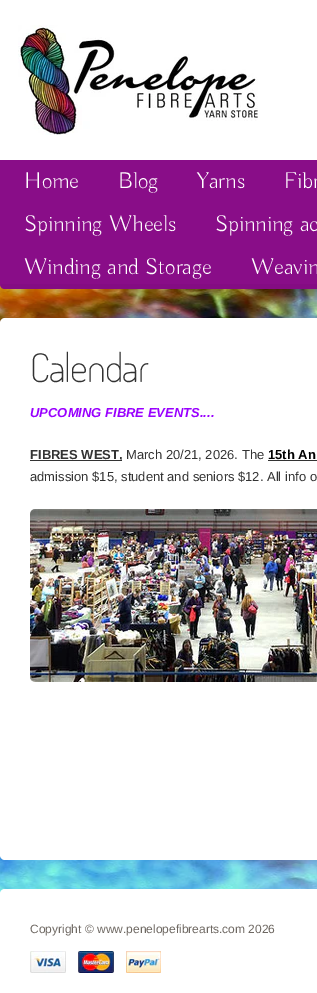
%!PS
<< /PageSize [317 993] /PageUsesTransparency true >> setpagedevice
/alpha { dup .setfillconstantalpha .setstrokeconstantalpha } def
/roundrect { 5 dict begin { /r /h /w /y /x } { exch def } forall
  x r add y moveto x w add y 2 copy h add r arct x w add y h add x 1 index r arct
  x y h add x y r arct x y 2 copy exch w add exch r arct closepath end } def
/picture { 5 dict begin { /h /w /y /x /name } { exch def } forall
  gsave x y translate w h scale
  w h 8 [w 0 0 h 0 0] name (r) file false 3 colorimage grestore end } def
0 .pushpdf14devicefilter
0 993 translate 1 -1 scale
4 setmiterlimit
1 setgray
0 0 317 993 rectfill
(img1.rgb) 0 284 317 610 picture
(img2.rgb) 18 25 240 110 picture
0.537 0.051 0.533 setrgbcolor
newpath 0 160 moveto 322 160 lineto 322 284 lineto 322 287 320 289 317 289 curveto 5 289 lineto 2 289 0 287 0 284 curveto closepath fill
0.04 alpha
0 setgray
1 284 316 5 rectfill
/Buda-Light [23 0 0 -23 0 0] selectfont
1 alpha
1 setgray
24 188 moveto (Home) show
118 188 moveto (Blog) show
197 188 moveto (Yarns) show
284 188 moveto (Fibr) show
24 231 moveto (Spinning Wheels) show
215 231 moveto (Spinning ac) show
24 274 moveto (Winding and Storage) show
251 274 moveto (Weavin) show
0 318 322 542 5 roundrect fill
/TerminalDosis-Light [39.5 0 0 -39.5 0 0] selectfont
0.2 setgray
30 382 moveto -1 0 (Calendar) ashow
/LiberationSans-BoldItalic [13 0 0 -13 0 0] selectfont
0.6 0 1 setrgbcolor
30 417 moveto (UPCOMING FIBRE EVENTS....) show
0.2 setgray
30 460 92 1 rectfill
/LiberationSans-Bold [13 0 0 -13 0 0] selectfont
30 459 moveto (FIBRES WEST,) show
/LiberationSans-Regular [13 0 0 -13 0 0] selectfont
126 459 moveto (March 20/21, 2026. The) show
/LiberationSans-Bold [13 0 0 -13 0 0] selectfont
0 setgray
268 459 moveto (15th An) show
0.2 setgray
268 460 49 1 rectfill
/LiberationSans-Regular [13 0 0 -13 0 0] selectfont
30 481 moveto (admission $15, student and seniors $12. All info o) show
(img3.rgb) 30 509 287 173 picture
1 setgray
newpath 5 889 moveto 317 889 lineto 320 889 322 891 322 894 curveto 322 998 lineto 0 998 lineto 0 894 lineto 0 891 2 889 5 889 curveto closepath fill
/LiberationSans-Regular [12 0 0 -12 0 0] selectfont
0.431 0.408 0.384 setrgbcolor
30 933 moveto (Copyright © www.penelopefibrearts.com 2026) show
(img4.rgb) 30 951 36 22 picture
(img5.rgb) 78 951 36 22 picture
(img6.rgb) 126 951 35 22 picture
.poppdf14devicefilter showpage
